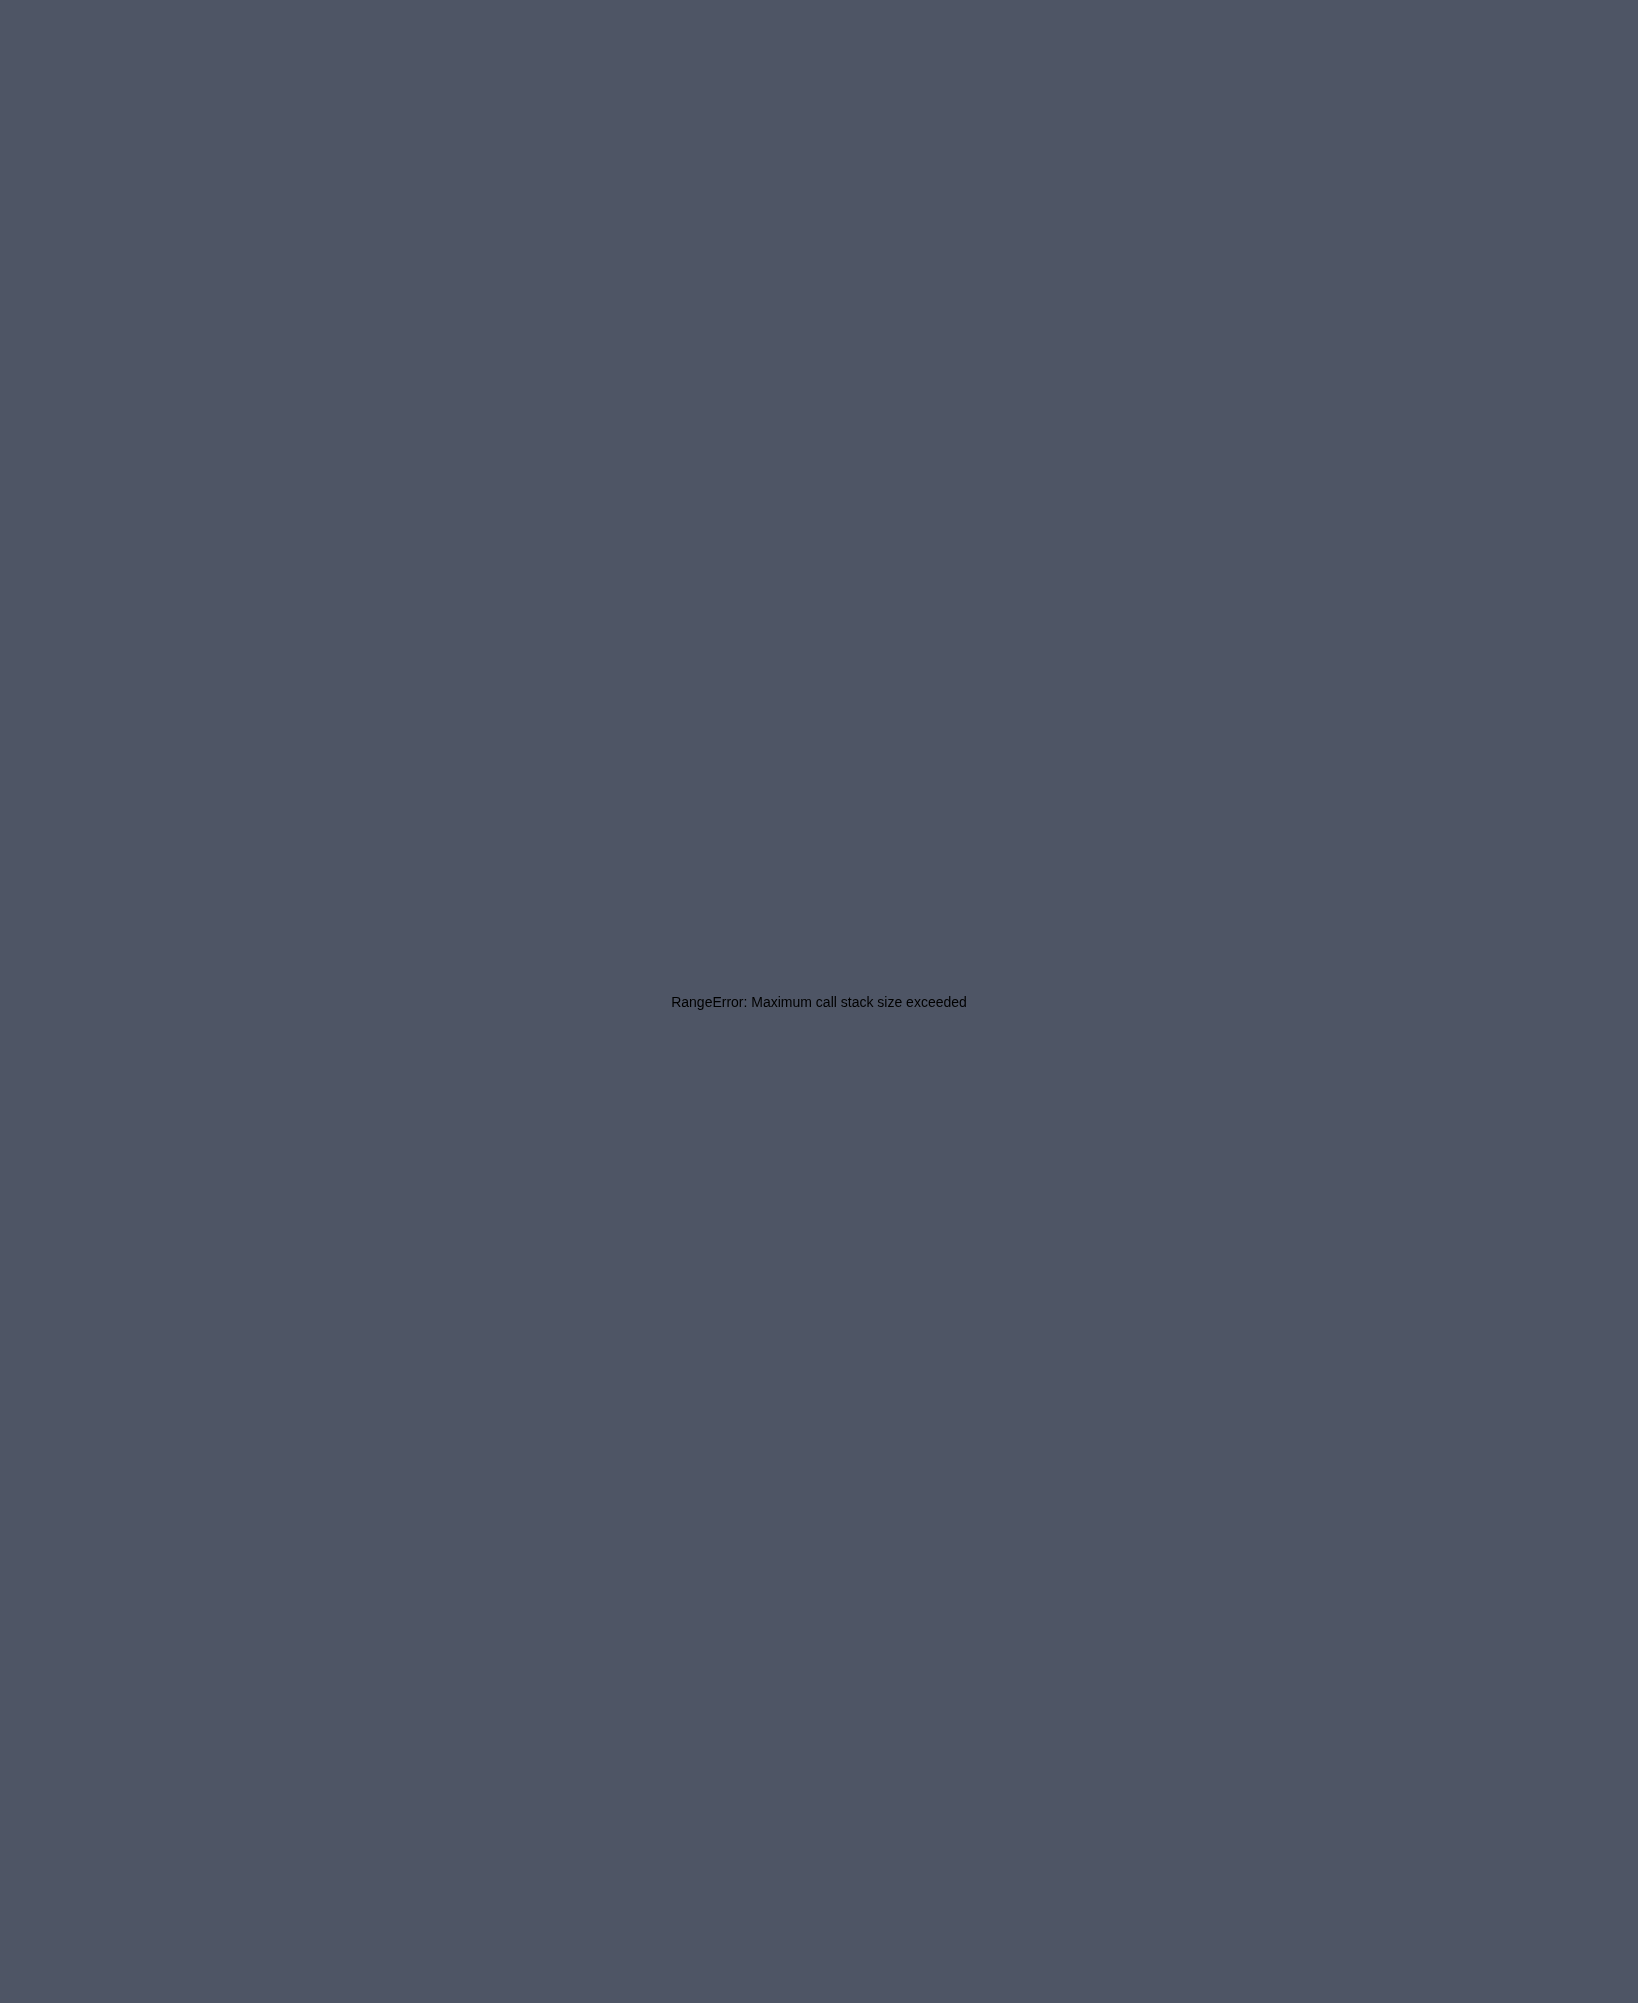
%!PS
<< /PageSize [1638 2003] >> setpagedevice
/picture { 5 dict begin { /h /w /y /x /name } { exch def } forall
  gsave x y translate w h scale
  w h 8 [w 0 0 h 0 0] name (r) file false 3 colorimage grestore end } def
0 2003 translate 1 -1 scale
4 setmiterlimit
0.306 0.333 0.396 setrgbcolor
0 0 1638 2003 rectfill
(img1.rgb) 672 996 294 14 picture
showpage
